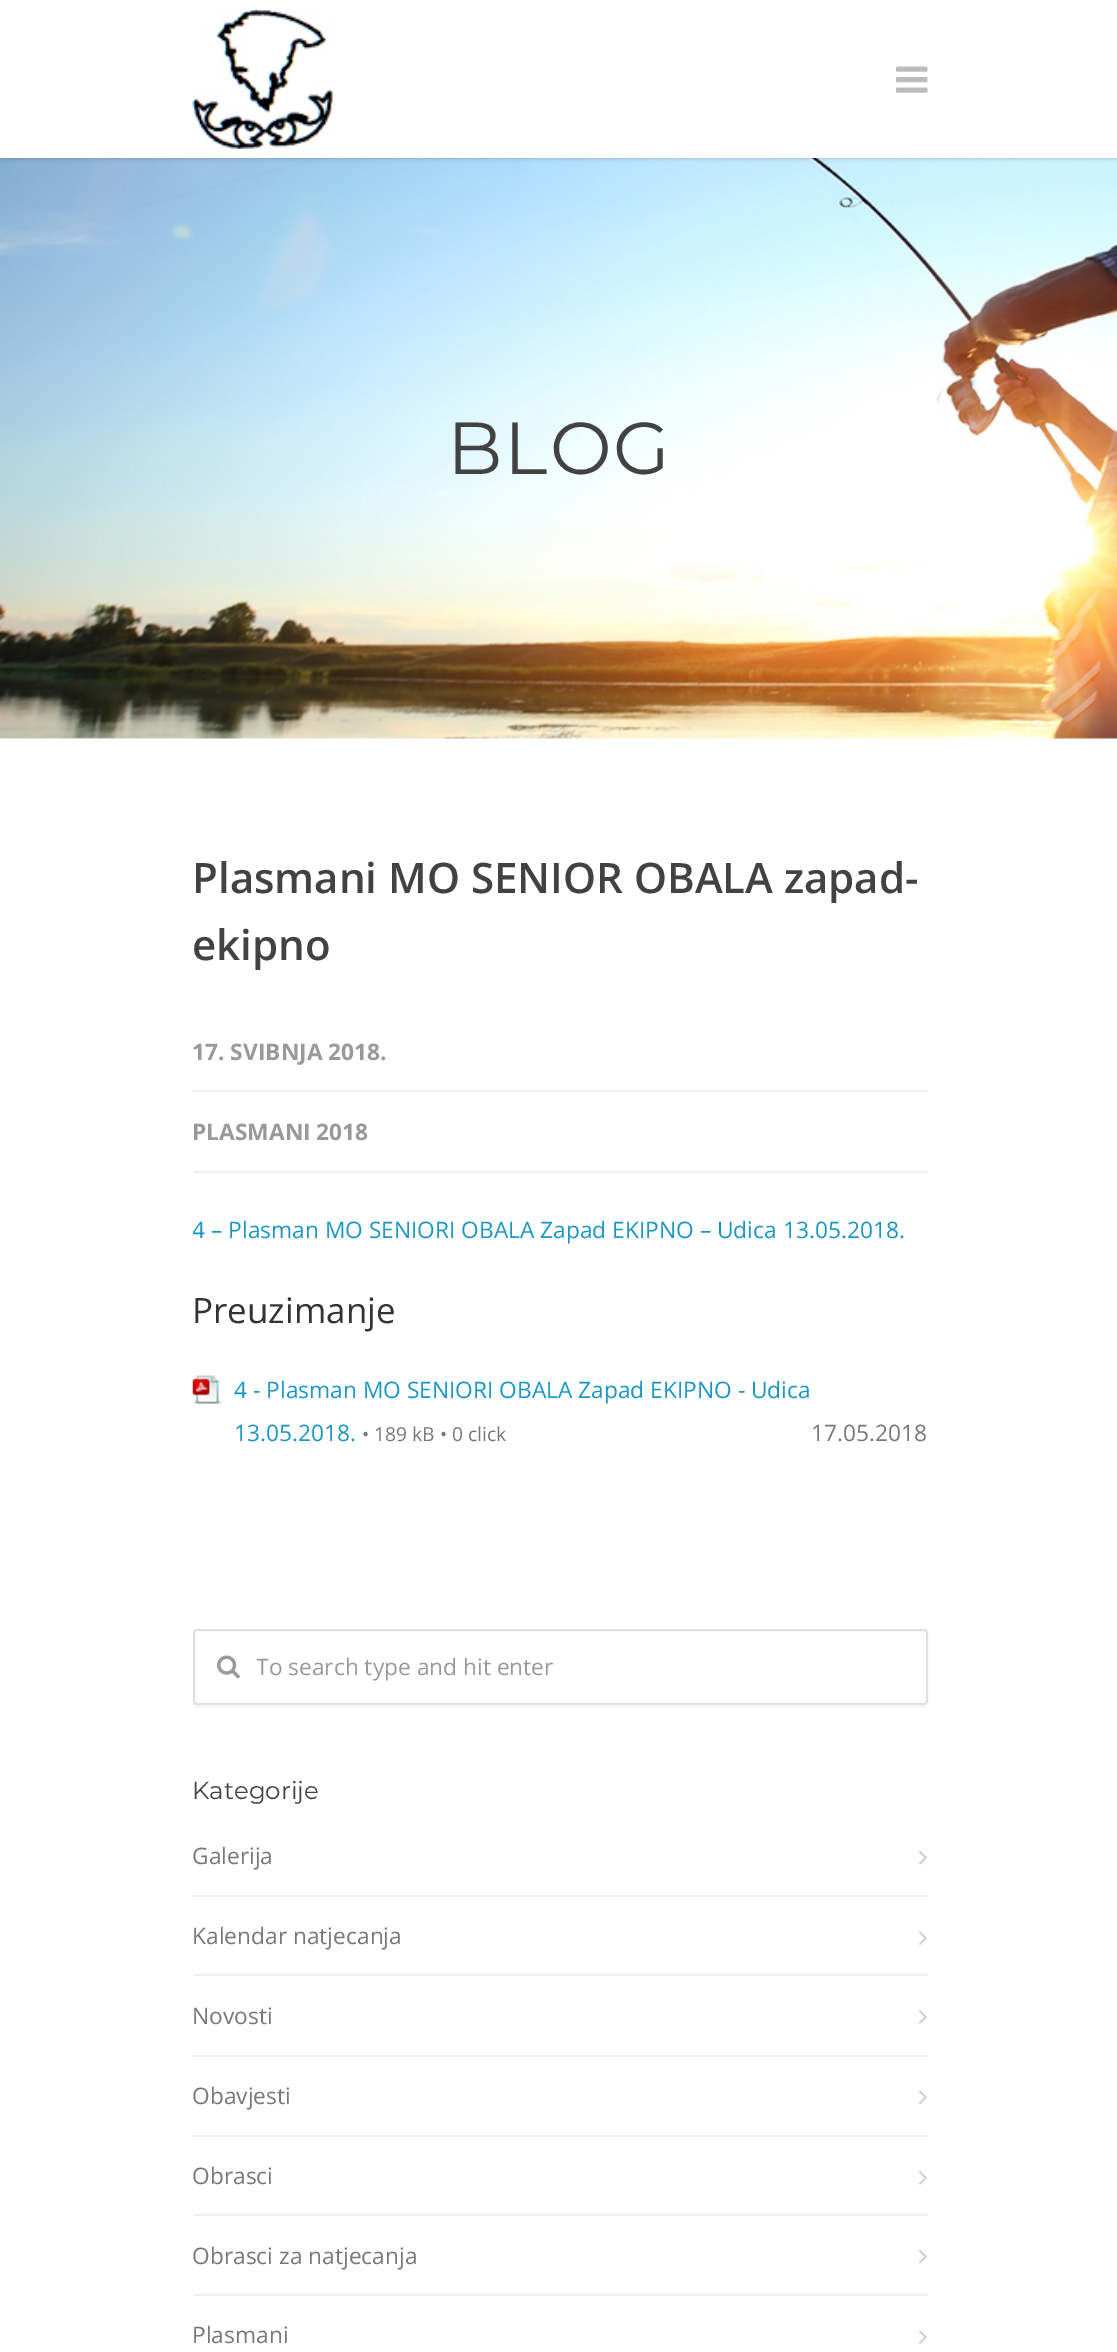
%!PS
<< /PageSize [1117 2352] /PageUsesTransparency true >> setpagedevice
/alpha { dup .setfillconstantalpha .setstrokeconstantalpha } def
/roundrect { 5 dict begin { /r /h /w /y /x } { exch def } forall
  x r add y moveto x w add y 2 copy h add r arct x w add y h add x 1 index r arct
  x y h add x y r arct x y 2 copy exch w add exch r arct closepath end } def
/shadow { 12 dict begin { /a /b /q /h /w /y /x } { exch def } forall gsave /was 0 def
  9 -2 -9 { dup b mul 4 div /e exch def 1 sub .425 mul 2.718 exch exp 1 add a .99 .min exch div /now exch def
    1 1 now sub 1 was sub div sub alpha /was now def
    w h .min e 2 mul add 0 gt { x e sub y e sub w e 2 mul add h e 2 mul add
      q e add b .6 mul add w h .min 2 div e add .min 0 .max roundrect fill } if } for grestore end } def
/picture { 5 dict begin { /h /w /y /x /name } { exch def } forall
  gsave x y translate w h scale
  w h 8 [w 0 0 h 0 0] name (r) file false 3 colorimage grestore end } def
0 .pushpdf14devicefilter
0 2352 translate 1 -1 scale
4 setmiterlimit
1 setgray
0 0 1117 2352 rectfill
(img3.rgb) 0 158 1117 581 picture
0 setgray
-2 -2 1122 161 0 2 0.16 shadow
1 setgray
0 0 1117 158 rectfill
(img1.rgb) 192 8 141 141 picture
(img2.rgb) 896 66 32 27 picture
/Montserrat-Regular [73.5 0 0 -73.5 0 0] selectfont
0.259 setgray
447 474 moveto 2 0 (BLOG) ashow
/OpenSans-SemiBold [42 0 0 -42 0 0] selectfont
192 893 moveto (Plasmani MO SENIOR OBALA zapad-) show
192 960 moveto (ekipno) show
0.937 setgray
193 1090 735 2 rectfill
/OpenSans-Bold [22.75 0 0 -22.75 0 0] selectfont
0.6 setgray
192 1060 moveto (17. SVIBNJA 2018.) show
0.937 setgray
193 1171 735 2 rectfill
0.6 setgray
192 1140 moveto (PLASMANI 2018) show
gsave
193 844 735 628 rectclip
/OpenSans-Regular [22.75 0 0 -22.75 0 0] selectfont
0.098 0.584 0.776 setrgbcolor
192 1238 moveto (4 – Plasman MO SENIORI OBALA Zapad EKIPNO – Udica 13.05.2018.) show
grestore
/OpenSans-Regular [35 0 0 -35 0 0] selectfont
0.2 setgray
192 1323 moveto (Preuzimanje) show
(img4.rgb) 192 1375 30 29 picture
/OpenSans-Regular [22.75 0 0 -22.75 0 0] selectfont
0.098 0.584 0.776 setrgbcolor
234 1398 moveto (4 - Plasman MO SENIORI OBALA Zapad EKIPNO - Udica) show
234 1441 moveto (13.05.2018.) show
/OpenSans-Regular [19.25 0 0 -19.25 0 0] selectfont
0.467 setgray
362 1441 moveto (• 189 kB • 0 click) show
/OpenSans-Regular [22.75 0 0 -22.75 0 0] selectfont
811 1441 moveto (17.05.2018) show
0.969 setgray
newpath 193 1703 moveto 193 1704 lineto 193 1706 195 1708 197 1708 curveto 924 1708 lineto 926 1708 928 1706 928 1704 curveto 928 1637 lineto 928 1635 lineto 928 1701 lineto 928 1703 926 1704 924 1704 curveto 196 1704 lineto 195 1704 194 1704 193 1703 curveto closepath fill
1 setgray
194 1630 733 74 3 roundrect gsave fill grestore
0.882 setgray
2 setlinewidth
stroke
(img5.rgb) 217 1655 23 24 picture
gsave
257 1649 648 36 rectclip
0.6 setgray
256 1675 moveto (To search type and hit enter) show
grestore
/Montserrat-Regular [24.5 0 0 -24.5 0 0] selectfont
0.259 setgray
192 1799 moveto (Kategorije) show
0.937 setgray
193 1895 735 2 rectfill
/OpenSans-Regular [22.75 0 0 -22.75 0 0] selectfont
0.467 setgray
192 1864 moveto (Galerija) show
(img6.rgb) 919 1851 8 14 picture
0.937 setgray
193 1974 735 2 rectfill
0.467 setgray
192 1944 moveto (Kalendar natjecanja) show
(img7.rgb) 919 1931 8 14 picture
0.937 setgray
193 2055 735 2 rectfill
0.467 setgray
192 2024 moveto (Novosti) show
(img8.rgb) 919 2010 8 14 picture
0.937 setgray
193 2135 735 2 rectfill
0.467 setgray
192 2104 moveto (Obavjesti) show
(img9.rgb) 919 2090 8 14 picture
0.937 setgray
193 2214 735 2 rectfill
0.467 setgray
192 2184 moveto (Obrasci) show
(img8.rgb) 919 2171 8 14 picture
0.937 setgray
193 2294 735 2 rectfill
0.467 setgray
192 2264 moveto (Obrasci za natjecanja) show
(img6.rgb) 919 2250 8 14 picture
192 2343 moveto (Plasmani) show
(img7.rgb) 919 2330 8 14 picture
.poppdf14devicefilter showpage
